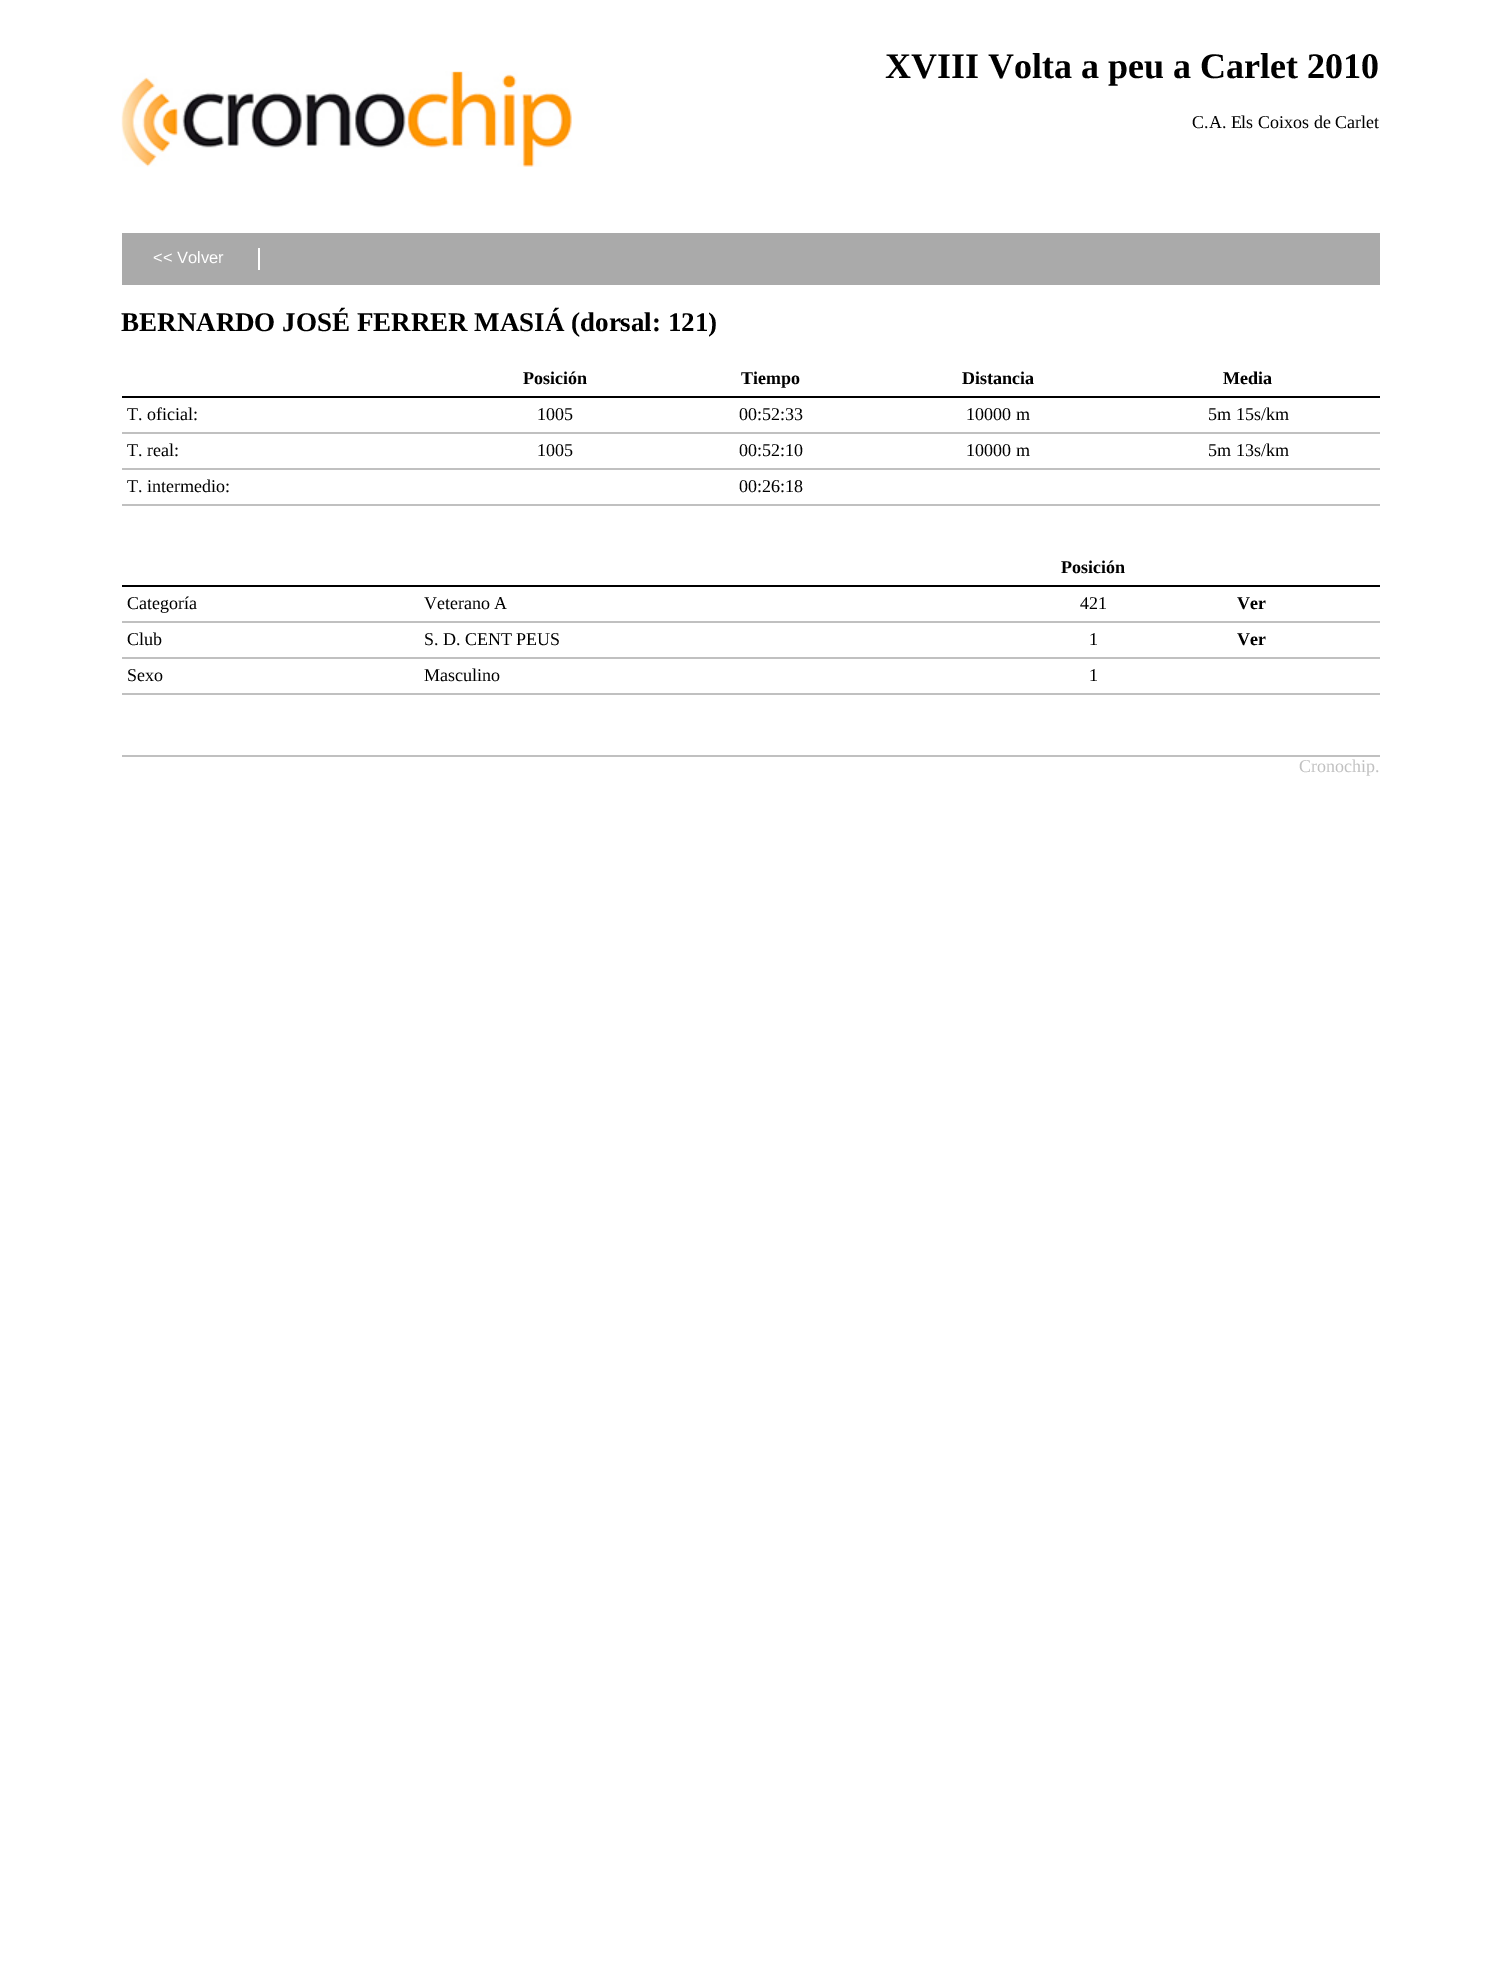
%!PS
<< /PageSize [1499 1981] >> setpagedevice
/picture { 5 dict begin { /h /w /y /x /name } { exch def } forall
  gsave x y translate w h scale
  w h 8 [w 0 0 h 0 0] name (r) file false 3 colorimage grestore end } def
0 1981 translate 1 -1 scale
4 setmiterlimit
1 setgray
0 0 1499 1981 rectfill
(img1.rgb) 121 71 451 96 picture
/LiberationSerif-Bold [36 0 0 -36 0 0] selectfont
0 setgray
885 78 moveto (XVIII Volta a peu a Carlet 2010) show
/LiberationSerif-Regular [18 0 0 -18 0 0] selectfont
1192 128 moveto (C.A. Els Coixos de Carlet) show
0.667 setgray
122 233 1258 52 rectfill
/LiberationSans-Regular [16.5 0 0 -16.5 0 0] selectfont
1 setgray
153 263 moveto (<< Volver) show
258 248 2 22 rectfill
/LiberationSerif-Bold [27 0 0 -27 0 0] selectfont
0 setgray
121 331 moveto (BERNARDO JOSÉ FERRER MASIÁ \(dorsal: 121\)) show
/LiberationSerif-Bold [18 0 0 -18 0 0] selectfont
523 384 moveto (Posición) show
741 384 moveto (Tiempo) show
962 384 moveto (Distancia) show
1223 384 moveto (Media) show
122 396 1258 2 rectfill
0.753 setgray
122 432 1258 2 rectfill
/LiberationSerif-Regular [18 0 0 -18 0 0] selectfont
0 setgray
127 420 moveto (T. oficial:) show
537 420 moveto (1005) show
739 420 moveto (00:52:33) show
966 420 moveto (10000 m) show
1208 420 moveto (5m 15s/km) show
0.753 setgray
122 468 1258 2 rectfill
0 setgray
127 456 moveto (T. real:) show
537 456 moveto (1005) show
739 456 moveto (00:52:10) show
966 456 moveto (10000 m) show
1208 456 moveto (5m 13s/km) show
0.753 setgray
122 504 1258 2 rectfill
0 setgray
127 492 moveto (T. intermedio:) show
739 492 moveto (00:26:18) show
/LiberationSerif-Bold [18 0 0 -18 0 0] selectfont
1061 573 moveto (Posición) show
122 585 1258 2 rectfill
0.753 setgray
122 621 1258 2 rectfill
/LiberationSerif-Regular [18 0 0 -18 0 0] selectfont
0 setgray
127 609 moveto (Categoría) show
424 609 moveto (Veterano A) show
1080 609 moveto (421) show
/LiberationSerif-Bold [18 0 0 -18 0 0] selectfont
1237 609 moveto (Ver) show
0.753 setgray
122 657 1258 2 rectfill
/LiberationSerif-Regular [18 0 0 -18 0 0] selectfont
0 setgray
127 645 moveto (Club) show
424 645 moveto (S. D. CENT PEUS) show
1089 645 moveto (1) show
/LiberationSerif-Bold [18 0 0 -18 0 0] selectfont
1237 645 moveto (Ver) show
0.753 setgray
122 693 1258 2 rectfill
/LiberationSerif-Regular [18 0 0 -18 0 0] selectfont
0 setgray
127 681 moveto (Sexo) show
424 681 moveto (Masculino) show
1089 681 moveto (1) show
0.753 setgray
122 755 1258 2 rectfill
1299 772 moveto (Cronochip.) show
showpage
